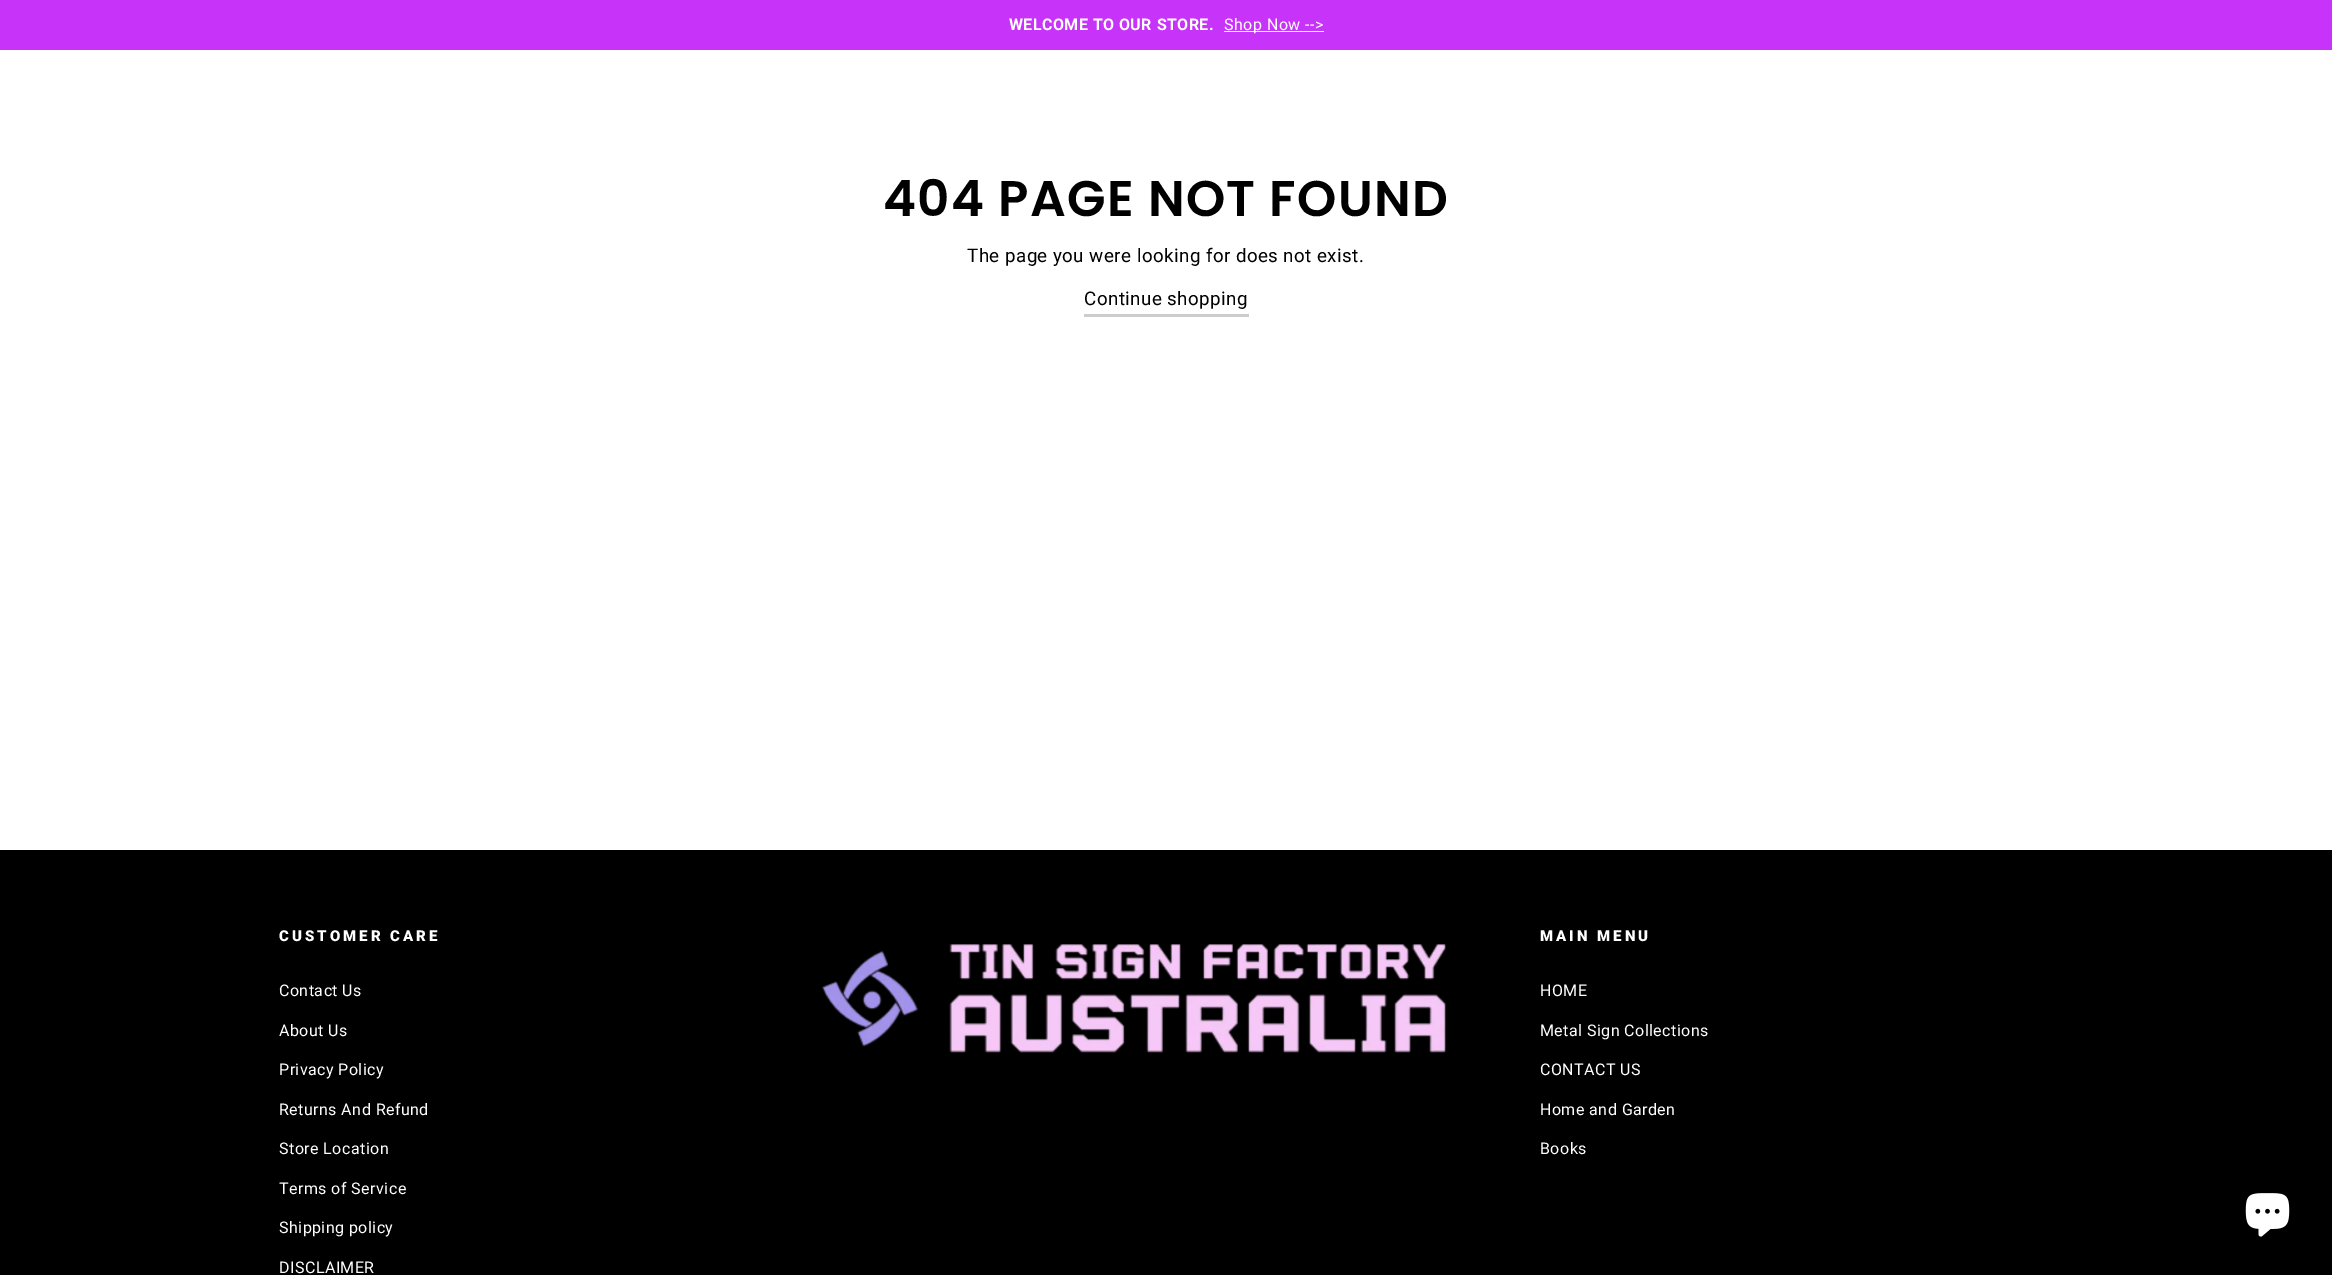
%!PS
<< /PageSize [2332 1275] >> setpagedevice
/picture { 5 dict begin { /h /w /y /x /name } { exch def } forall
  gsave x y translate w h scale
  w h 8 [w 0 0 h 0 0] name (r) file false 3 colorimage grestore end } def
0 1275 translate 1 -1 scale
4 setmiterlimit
1 setgray
0 0 2332 1275 rectfill
0.78 0.2 0.976 setrgbcolor
0 0 2332 50 rectfill
/Roboto-Bold [16 0 0 -16 0 0] selectfont
1 setgray
1009 30 moveto 0.45 0 (WELCOME TO OUR STORE.) ashow
1224 31 100 1 rectfill
/Roboto-Regular [16 0 0 -16 0 0] selectfont
1224 30 moveto 0.45 0 (Shop Now -->) ashow
/Poppins-SemiBold [50 0 0 -50 0 0] selectfont
0 setgray
883 216 moveto 1.25 0 (404 PAGE NOT FOUND) ashow
/Roboto-Regular [18.75 0 0 -18.75 0 0] selectfont
967 262 moveto 0.45 0 (The page you were looking for does not exist.) ashow
0.8 setgray
1084 314 165 3 rectfill
0 setgray
1084 305 moveto 0.45 0 (Continue shopping) ashow
0 850 2332 425 rectfill
/Roboto-Black [15 0 0 -15 0 0] selectfont
1 setgray
279 941 moveto 3 0 (CUSTOMER CARE) ashow
/Roboto-Regular [16 0 0 -16 0 0] selectfont
279 996 moveto 0.45 0 (Contact Us) ashow
279 1036 moveto 0.45 0 (About Us) ashow
279 1075 moveto 0.45 0 (Privacy Policy) ashow
279 1115 moveto 0.45 0 (Returns And Refund) ashow
279 1154 moveto 0.45 0 (Store Location) ashow
279 1194 moveto 0.45 0 (Terms of Service) ashow
279 1233 moveto 0.45 0 (Shipping policy) ashow
279 1273 moveto 0.45 0 (DISCLAIMER) ashow
(img1.rgb) 821 944 625 109 picture
/Roboto-Black [15 0 0 -15 0 0] selectfont
1540 941 moveto 3 0 (MAIN MENU) ashow
/Roboto-Regular [16 0 0 -16 0 0] selectfont
1540 996 moveto 0.45 0 (HOME) ashow
1540 1036 moveto 0.45 0 (Metal Sign Collections) ashow
1540 1075 moveto 0.45 0 (CONTACT US) ashow
1540 1115 moveto 0.45 0 (Home and Garden) ashow
1540 1154 moveto 0.45 0 (Books) ashow
(img2.rgb) 2245 1193 45 44 picture
showpage
